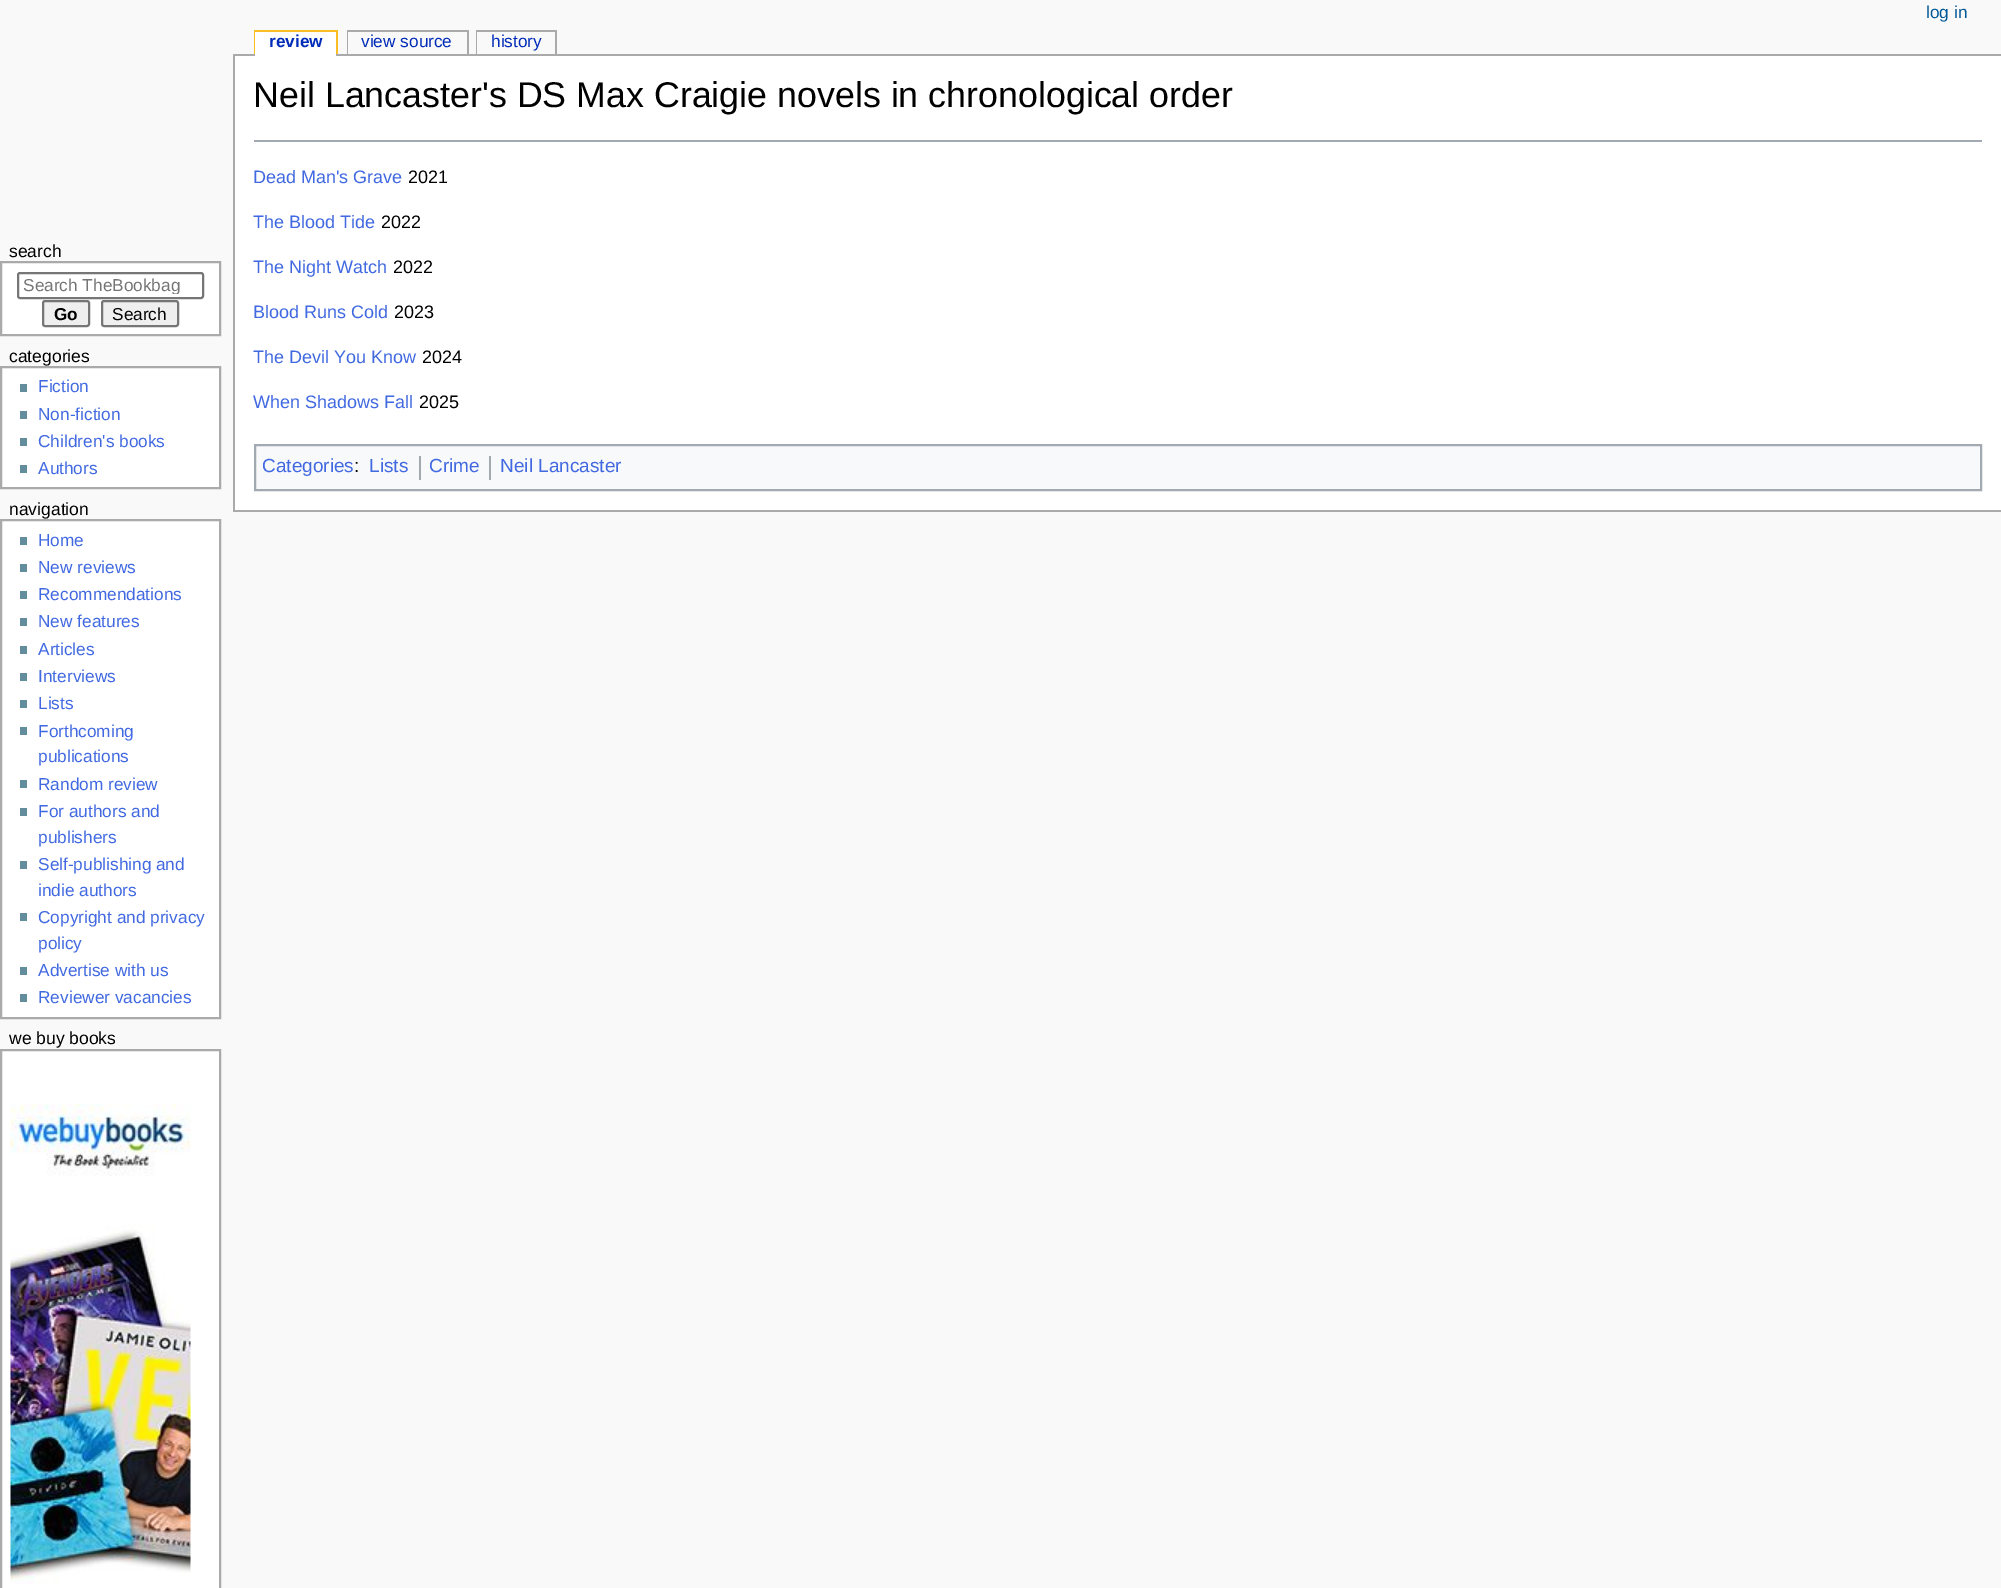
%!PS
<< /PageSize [2001 1588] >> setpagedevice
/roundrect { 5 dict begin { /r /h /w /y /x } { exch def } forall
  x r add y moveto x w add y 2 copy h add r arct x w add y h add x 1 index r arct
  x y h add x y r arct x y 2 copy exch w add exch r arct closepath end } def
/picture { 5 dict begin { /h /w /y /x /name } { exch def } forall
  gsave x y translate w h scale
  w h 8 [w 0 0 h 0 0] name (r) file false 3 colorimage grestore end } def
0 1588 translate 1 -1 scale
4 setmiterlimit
0.976 setgray
0 0 2001 1588 rectfill
/LiberationSans-Regular [17.25 0 0 -17.25 0 0] selectfont
0 0.345 0.588 setrgbcolor
1926 18 moveto (log in) show
0.98 0.741 0.137 setrgbcolor
254 30 84 2 rectfill
254 30 2 24 rectfill
0.667 setgray
233 54 1768 2 rectfill
1 setgray
255 32 81 24 rectfill
/LiberationSans-Bold [17.25 0 0 -17.25 0 0] selectfont
0 0.169 0.722 setrgbcolor
269 47 moveto (review) show
0.98 0.741 0.137 setrgbcolor
336 30 2 24 rectfill
/LiberationSans-Regular [17.25 0 0 -17.25 0 0] selectfont
0 0.169 0.722 setrgbcolor
361 47 moveto (view source) show
0.667 setgray
347 30 121 2 rectfill
467 30 2 24 rectfill
347 30 2 24 rectfill
0.984 setgray
348 32 1 22 rectfill
0 0.169 0.722 setrgbcolor
491 47 moveto (history) show
0.667 setgray
476 30 81 2 rectfill
555 30 2 24 rectfill
476 30 2 24 rectfill
0.984 setgray
477 32 1 22 rectfill
/LiberationSans-Regular [17.5 0 0 -17.5 0 0] selectfont
0 setgray
9 257 moveto (search) show
1 setgray
newpath 1 262 moveto 220 262 lineto 220 335 lineto 1 335 lineto closepath gsave fill grestore
0.667 setgray
2 setlinewidth
stroke
0.463 setgray
18 273 185 25 2 roundrect stroke
gsave
23 276 157 18 rectclip
/LiberationSans-Regular [17.25 0 0 -17.25 0 0] selectfont
0.459 setgray
23 291 moveto (Search TheBookbag) show
grestore
0.937 setgray
43 301 46 25 2 roundrect gsave fill grestore
0.463 setgray
stroke
/LiberationSans-Bold [17.25 0 0 -17.25 0 0] selectfont
0 setgray
54 320 moveto (Go) show
0.937 setgray
102 301 76 25 2 roundrect gsave fill grestore
0.463 setgray
stroke
/LiberationSans-Regular [17.25 0 0 -17.25 0 0] selectfont
0 setgray
112 320 moveto (Search) show
/LiberationSans-Regular [17.5 0 0 -17.5 0 0] selectfont
9 362 moveto (categories) show
1 setgray
newpath 1 367 moveto 220 367 lineto 220 488 lineto 1 488 lineto closepath gsave fill grestore
0.667 setgray
stroke
0.388 0.549 0.612 setrgbcolor
20 384 7 8 rectfill
/LiberationSans-Regular [17.25 0 0 -17.25 0 0] selectfont
0.255 0.412 0.882 setrgbcolor
38 392 moveto (Fiction) show
0.388 0.549 0.612 setrgbcolor
20 411 7 8 rectfill
0.255 0.412 0.882 setrgbcolor
38 420 moveto (Non-fiction) show
0.388 0.549 0.612 setrgbcolor
20 438 7 8 rectfill
0.255 0.412 0.882 setrgbcolor
38 447 moveto (Children's books) show
0.388 0.549 0.612 setrgbcolor
20 465 7 8 rectfill
0.255 0.412 0.882 setrgbcolor
38 474 moveto (Authors) show
/LiberationSans-Regular [17.5 0 0 -17.5 0 0] selectfont
0 setgray
9 515 moveto (navigation) show
1 setgray
newpath 1 520 moveto 220 520 lineto 220 1018 lineto 1 1018 lineto closepath gsave fill grestore
0.667 setgray
stroke
0.388 0.549 0.612 setrgbcolor
20 537 7 8 rectfill
/LiberationSans-Regular [17.25 0 0 -17.25 0 0] selectfont
0.255 0.412 0.882 setrgbcolor
38 546 moveto (Home) show
0.388 0.549 0.612 setrgbcolor
20 564 7 8 rectfill
0.255 0.412 0.882 setrgbcolor
38 573 moveto (New reviews) show
0.388 0.549 0.612 setrgbcolor
20 591 7 8 rectfill
0.255 0.412 0.882 setrgbcolor
38 600 moveto (Recommendations) show
0.388 0.549 0.612 setrgbcolor
20 618 7 8 rectfill
0.255 0.412 0.882 setrgbcolor
38 627 moveto (New features) show
0.388 0.549 0.612 setrgbcolor
20 646 7 8 rectfill
0.255 0.412 0.882 setrgbcolor
38 655 moveto (Articles) show
0.388 0.549 0.612 setrgbcolor
20 673 7 8 rectfill
0.255 0.412 0.882 setrgbcolor
38 682 moveto (Interviews) show
0.388 0.549 0.612 setrgbcolor
20 700 7 8 rectfill
0.255 0.412 0.882 setrgbcolor
38 709 moveto (Lists) show
0.388 0.549 0.612 setrgbcolor
20 727 7 8 rectfill
0.255 0.412 0.882 setrgbcolor
38 737 moveto (Forthcoming) show
38 762 moveto (publications) show
0.388 0.549 0.612 setrgbcolor
20 780 7 8 rectfill
0.255 0.412 0.882 setrgbcolor
38 790 moveto (Random review) show
0.388 0.549 0.612 setrgbcolor
20 808 7 8 rectfill
0.255 0.412 0.882 setrgbcolor
38 817 moveto (For authors and) show
38 843 moveto (publishers) show
0.388 0.549 0.612 setrgbcolor
20 861 7 8 rectfill
0.255 0.412 0.882 setrgbcolor
38 870 moveto (Self-publishing and) show
38 896 moveto (indie authors) show
0.388 0.549 0.612 setrgbcolor
20 913 7 8 rectfill
0.255 0.412 0.882 setrgbcolor
38 923 moveto (Copyright and privacy) show
38 949 moveto (policy) show
0.388 0.549 0.612 setrgbcolor
20 967 7 8 rectfill
0.255 0.412 0.882 setrgbcolor
38 976 moveto (Advertise with us) show
0.388 0.549 0.612 setrgbcolor
20 994 7 8 rectfill
0.255 0.412 0.882 setrgbcolor
38 1003 moveto (Reviewer vacancies) show
/LiberationSans-Regular [17.5 0 0 -17.5 0 0] selectfont
0 setgray
9 1044 moveto (we buy books) show
1 setgray
newpath 1 1050 moveto 220 1050 lineto 220 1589 lineto 1 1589 lineto closepath gsave fill grestore
0.667 setgray
stroke
(img1.rgb) 10 1103 181 481 picture
1 setgray
235 56 1766 454 rectfill
0.667 setgray
233 510 1768 2 rectfill
233 54 2 458 rectfill
0.635 0.663 0.694 setrgbcolor
254 140 1728 2 rectfill
/LiberationSans-Regular [35.8 0 0 -35.8 0 0] selectfont
0 setgray
253 107 moveto (Neil Lancaster's DS Max Craigie novels in chronological order) show
/LiberationSans-Regular [18 0 0 -18 0 0] selectfont
0.255 0.412 0.882 setrgbcolor
253 183 moveto (Dead Man's Grave) show
0 setgray
408 183 moveto (2021) show
0.255 0.412 0.882 setrgbcolor
253 228 moveto (The Blood Tide) show
0 setgray
381 228 moveto (2022) show
0.255 0.412 0.882 setrgbcolor
253 273 moveto (The Night Watch) show
0 setgray
393 273 moveto (2022) show
0.255 0.412 0.882 setrgbcolor
253 318 moveto (Blood Runs Cold) show
0 setgray
394 318 moveto (2023) show
0.255 0.412 0.882 setrgbcolor
253 363 moveto (The Devil You Know) show
0 setgray
422 363 moveto (2024) show
0.255 0.412 0.882 setrgbcolor
253 408 moveto (When Shadows Fall) show
0 setgray
419 408 moveto (2025) show
0.973 0.976 0.98 setrgbcolor
newpath 255 445 moveto 1981 445 lineto 1981 490 lineto 255 490 lineto closepath gsave fill grestore
0.635 0.663 0.694 setrgbcolor
stroke
/LiberationSans-Regular [19 0 0 -19 0 0] selectfont
0.255 0.412 0.882 setrgbcolor
262 472 moveto (Categories) show
0 setgray
354 472 moveto (:) show
0.255 0.412 0.882 setrgbcolor
369 472 moveto (Lists) show
0.635 0.663 0.694 setrgbcolor
419 456 2 24 rectfill
0.255 0.412 0.882 setrgbcolor
429 472 moveto (Crime) show
0.635 0.663 0.694 setrgbcolor
489 456 2 24 rectfill
0.255 0.412 0.882 setrgbcolor
500 472 moveto (Neil Lancaster) show
showpage
